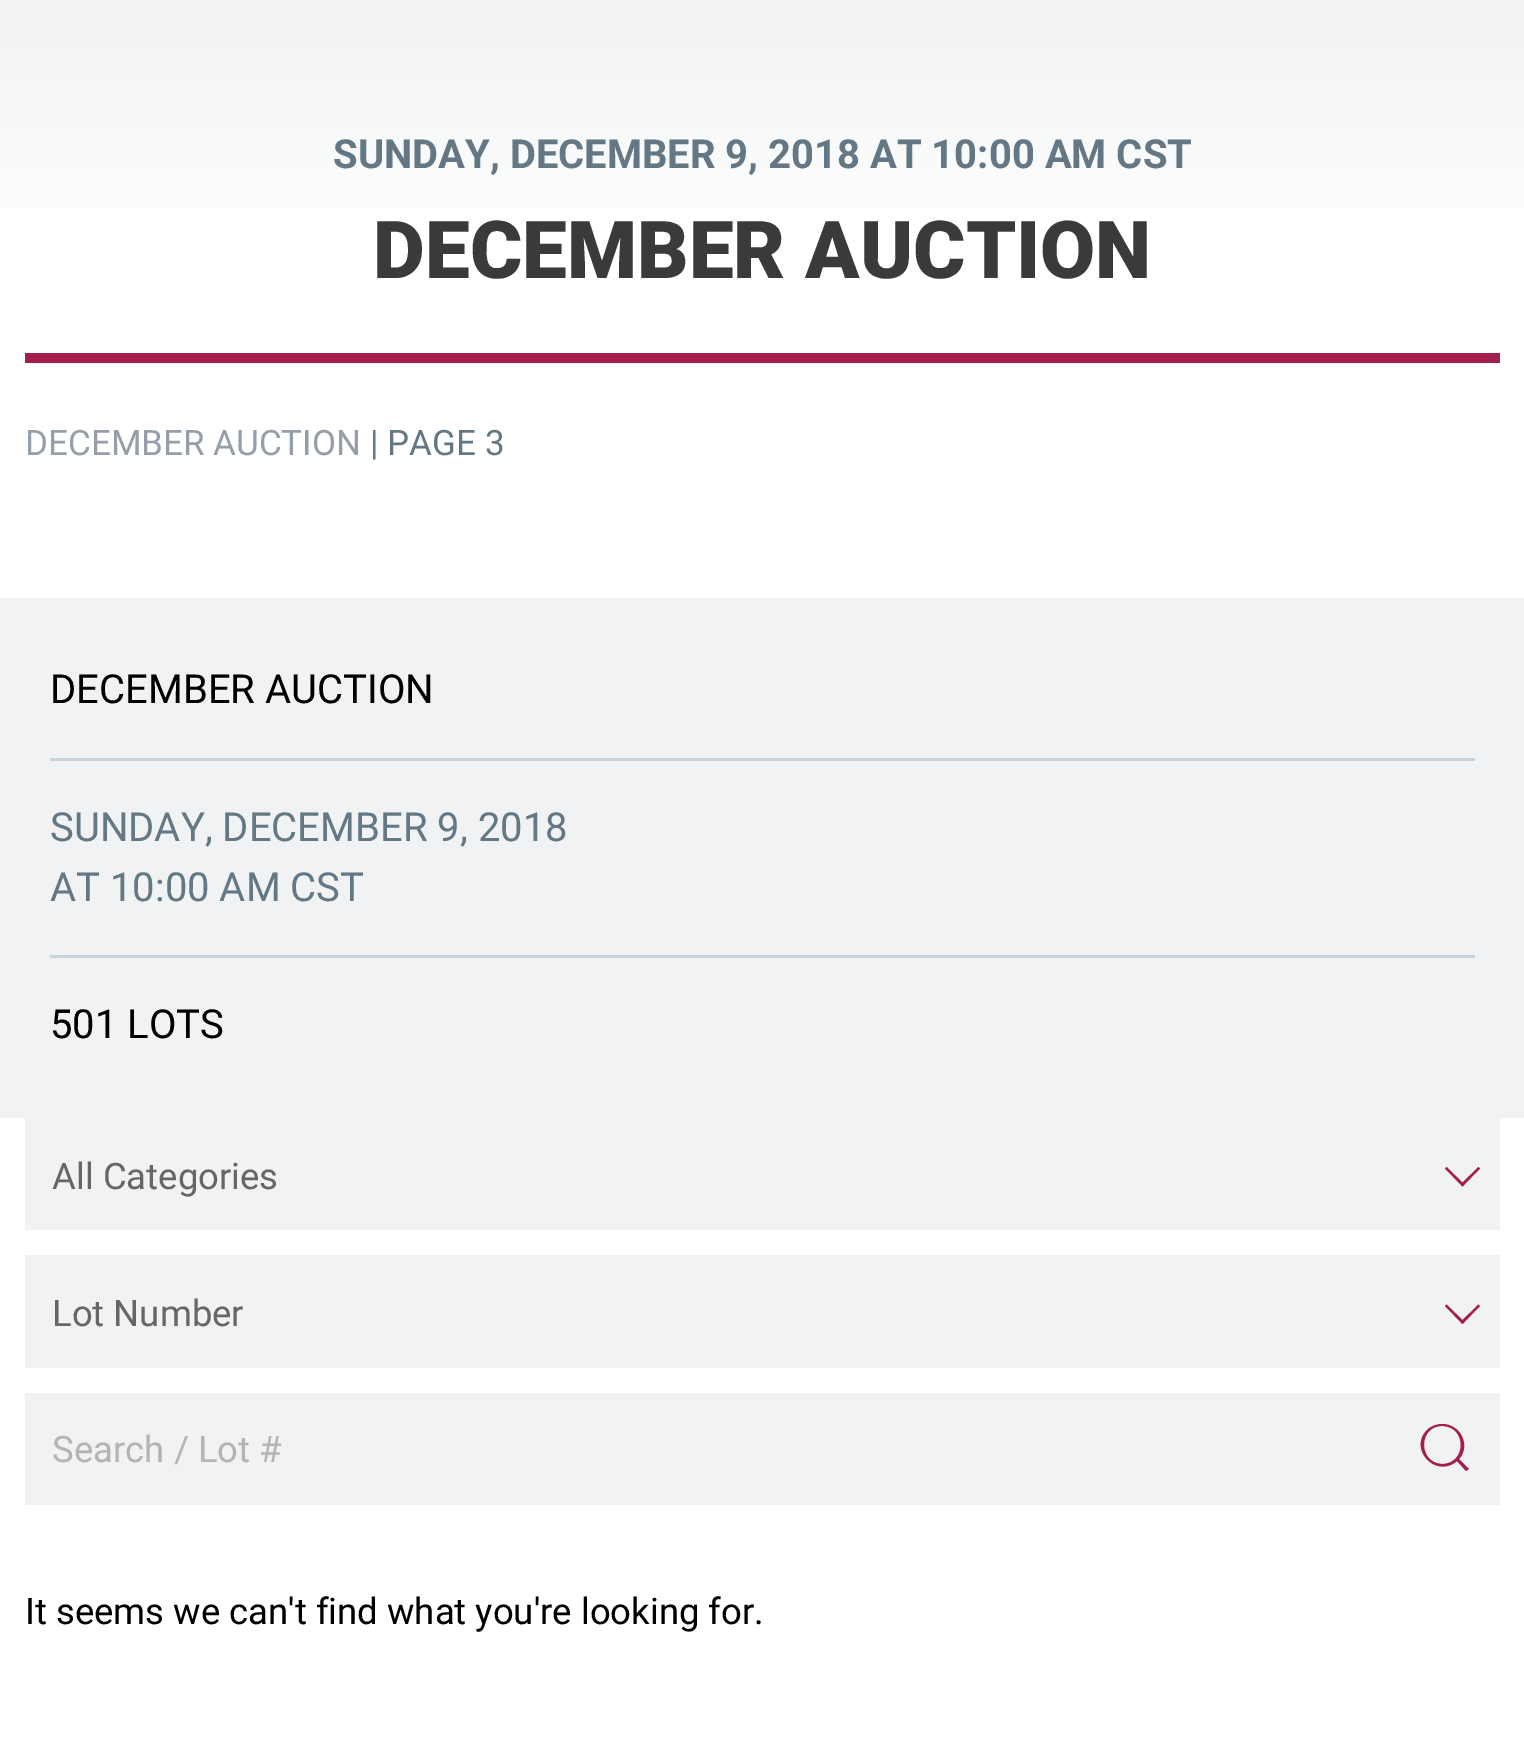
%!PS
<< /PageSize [1524 1764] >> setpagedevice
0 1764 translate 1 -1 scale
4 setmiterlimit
1 setgray
0 0 1524 1764 rectfill
gsave newpath 0 0 moveto 1524 0 lineto 1524 208 lineto 0 208 lineto closepath clip newpath
<< /ShadingType 2 /ColorSpace /DeviceRGB /Coords [763 0 763 498] /Extend [true true] /Function << /FunctionType 3 /Domain [0 1] /Functions [<< /FunctionType 2 /Domain [0 1] /C0 [0.941 0.949 0.953] /C1 [1 1 1] /N 1 >> << /FunctionType 2 /Domain [0 1] /C0 [1 1 1] /C1 [1 1 1] /N 1 >>] /Bounds [0.5] /Encode [0 1 0 1] >> >> shfill grestore
/Roboto-Bold [40 0 0 -40 0 0] selectfont
0.388 0.471 0.518 setrgbcolor
333 168 moveto (SUNDAY, DECEMBER 9, 2018 AT 10:00 AM CST) show
0.639 0.122 0.286 setrgbcolor
25 353 1475 10 rectfill
/Roboto-Black [80 0 0 -80 0 0] selectfont
0.227 setgray
373 278 moveto (DECEMBER AUCTION) show
/Roboto-Regular [35 0 0 -35 0 0] selectfont
0.584 0.62 0.663 setrgbcolor
25 455 moveto (DECEMBER AUCTION) show
0.388 0.471 0.518 setrgbcolor
370 455 moveto (| PAGE 3) show
0.941 0.949 0.953 setrgbcolor
0 598 1524 520 rectfill
0.784 0.827 0.851 setrgbcolor
50 758 1425 3 rectfill
/Roboto-Regular [40 0 0 -40 0 0] selectfont
0 setgray
50 703 moveto (DECEMBER AUCTION) show
0.784 0.827 0.851 setrgbcolor
50 955 1425 3 rectfill
0.388 0.471 0.518 setrgbcolor
50 841 moveto (SUNDAY, DECEMBER 9, 2018) show
50 901 moveto (AT 10:00 AM CST) show
0 setgray
50 1038 moveto (501 LOTS) show
0.941 0.949 0.953 setrgbcolor
25 1118 1475 112 rectfill
/Roboto-Regular [36.5 0 0 -36.5 0 0] selectfont
0.4 setgray
52 1189 moveto (All Categories) show
0.639 0.122 0.286 setrgbcolor
newpath 1478.5 1167 moveto 1480 1168.5 lineto 1462.5 1186.5 lineto 1460.5 1184.5 lineto closepath fill
newpath 1446.5 1167 moveto 1464.5 1184.5 lineto 1462.5 1186.5 lineto 1445 1168.5 lineto closepath fill
0.941 0.949 0.953 setrgbcolor
25 1255 1475 113 rectfill
0.4 setgray
52 1326 moveto (Lot Number) show
0.639 0.122 0.286 setrgbcolor
newpath 1478.5 1304.5 moveto 1480 1306 lineto 1462.5 1324 lineto 1460.5 1322 lineto closepath fill
newpath 1446.5 1304.5 moveto 1464.5 1322 lineto 1462.5 1324 lineto 1445 1306 lineto closepath fill
0.941 0.949 0.953 setrgbcolor
25 1393 1475 112 rectfill
0.702 0.706 0.706 setrgbcolor
52 1462 moveto (Search / Lot #) show
0.639 0.122 0.286 setrgbcolor
newpath 1442 1424 moveto 1461 1424 1471 1446 1459 1459 curveto 1469 1469 lineto 1466 1471 lineto 1457 1461 lineto 1436 1479 1408 1449 1427 1430 curveto 1431 1426 1437 1424 1442 1424 curveto closepath 1442 1426 moveto 1418 1426 1418 1463 1442 1464 curveto 1467 1464 1467 1426 1442 1426 curveto closepath fill
0 setgray
25 1624 moveto (It seems we can't find what you're looking for.) show
showpage
